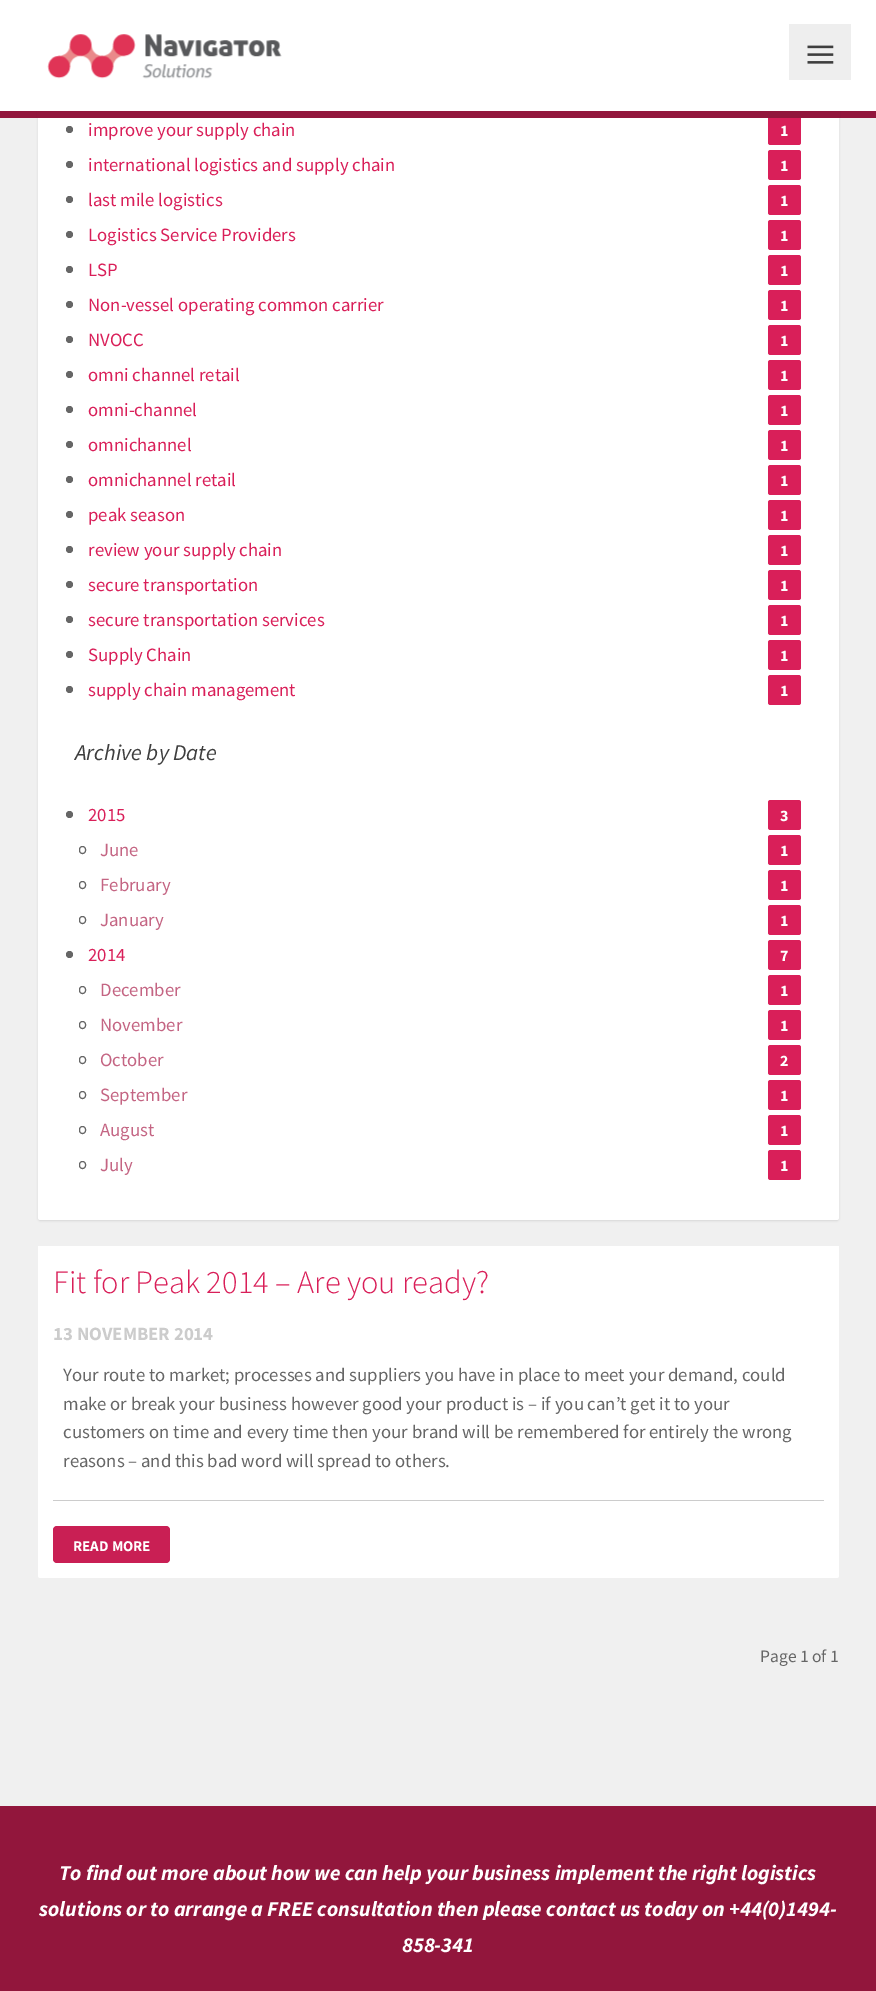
%!PS
<< /PageSize [876 1991] /PageUsesTransparency true >> setpagedevice
/alpha { dup .setfillconstantalpha .setstrokeconstantalpha } def
/roundrect { 5 dict begin { /r /h /w /y /x } { exch def } forall
  x r add y moveto x w add y 2 copy h add r arct x w add y h add x 1 index r arct
  x y h add x y r arct x y 2 copy exch w add exch r arct closepath end } def
/shadow { 12 dict begin { /a /b /q /h /w /y /x } { exch def } forall gsave /was 0 def
  9 -2 -9 { dup b mul 4 div /e exch def 1 sub .425 mul 2.718 exch exp 1 add a .99 .min exch div /now exch def
    1 1 now sub 1 was sub div sub alpha /was now def
    w h .min e 2 mul add 0 gt { x e sub y e sub w e 2 mul add h e 2 mul add
      q e add b .6 mul add w h .min 2 div e add .min 0 .max roundrect fill } if } for grestore end } def
/picture { 5 dict begin { /h /w /y /x /name } { exch def } forall
  gsave x y translate w h scale
  w h 8 [w 0 0 h 0 0] name (r) file false 3 colorimage grestore end } def
0 .pushpdf14devicefilter
0 1991 translate 1 -1 scale
4 setmiterlimit
0.573 0.086 0.235 setrgbcolor
0 0 876 1991 rectfill
0.941 setgray
0 118 876 1688 rectfill
0 setgray
38 -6 801 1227 2.5 1 0.1 shadow
1 setgray
newpath 38 -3 moveto 839 -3 lineto 839 1217.5 lineto 839 1219 838 1220 836.5 1220 curveto 40.5 1220 lineto 39 1220 38 1219 38 1217.5 curveto closepath fill
0 0 876 111 rectfill
0.851 0.122 0.349 setrgbcolor
768 115 33 30 2.5 roundrect fill
0.573 0.086 0.235 setrgbcolor
37 111 803 7 rectfill
(img1.rgb) 47 34 235 45 picture
0.933 setgray
789 24 62 56 rectfill
(img2.rgb) 807 45 27 19 picture
0.4 setgray
newpath 69.5 129.5 3.5 0 360 arc closepath fill
/SourceSansPro-Regular [18.75 0 0 -18.75 0 0] selectfont
0.851 0.122 0.349 setrgbcolor
88 136 moveto (improve your supply chain) show
/SourceSansPro-Bold [16 0 0 -16 0 0] selectfont
1 setgray
780 136 moveto (1) show
0.4 setgray
newpath 69.5 164.5 3.5 0 360 arc closepath fill
/SourceSansPro-Regular [18.75 0 0 -18.75 0 0] selectfont
0.851 0.122 0.349 setrgbcolor
88 171 moveto (international logistics and supply chain) show
768 150 33 30 2.5 roundrect fill
/SourceSansPro-Bold [16 0 0 -16 0 0] selectfont
1 setgray
780 171 moveto (1) show
0.4 setgray
newpath 69.5 199.5 3.5 0 360 arc closepath fill
/SourceSansPro-Regular [18.75 0 0 -18.75 0 0] selectfont
0.851 0.122 0.349 setrgbcolor
88 206 moveto (last mile logistics) show
768 185 33 30 2.5 roundrect fill
/SourceSansPro-Bold [16 0 0 -16 0 0] selectfont
1 setgray
780 206 moveto (1) show
0.4 setgray
newpath 69.5 234.5 3.5 0 360 arc closepath fill
/SourceSansPro-Regular [18.75 0 0 -18.75 0 0] selectfont
0.851 0.122 0.349 setrgbcolor
88 241 moveto (Logistics Service Providers) show
768 220 33 30 2.5 roundrect fill
/SourceSansPro-Bold [16 0 0 -16 0 0] selectfont
1 setgray
780 241 moveto (1) show
0.4 setgray
newpath 69.5 269.5 3.5 0 360 arc closepath fill
/SourceSansPro-Regular [18.75 0 0 -18.75 0 0] selectfont
0.851 0.122 0.349 setrgbcolor
88 276 moveto (LSP) show
768 255 33 30 2.5 roundrect fill
/SourceSansPro-Bold [16 0 0 -16 0 0] selectfont
1 setgray
780 276 moveto (1) show
0.4 setgray
newpath 69.5 304.5 3.5 0 360 arc closepath fill
/SourceSansPro-Regular [18.75 0 0 -18.75 0 0] selectfont
0.851 0.122 0.349 setrgbcolor
88 311 moveto (Non-vessel operating common carrier) show
768 290 33 30 2.5 roundrect fill
/SourceSansPro-Bold [16 0 0 -16 0 0] selectfont
1 setgray
780 311 moveto (1) show
0.4 setgray
newpath 69.5 339.5 3.5 0 360 arc closepath fill
/SourceSansPro-Regular [18.75 0 0 -18.75 0 0] selectfont
0.851 0.122 0.349 setrgbcolor
88 346 moveto (NVOCC) show
768 325 33 30 2.5 roundrect fill
/SourceSansPro-Bold [16 0 0 -16 0 0] selectfont
1 setgray
780 346 moveto (1) show
0.4 setgray
newpath 69.5 374.5 3.5 0 360 arc closepath fill
/SourceSansPro-Regular [18.75 0 0 -18.75 0 0] selectfont
0.851 0.122 0.349 setrgbcolor
88 381 moveto (omni channel retail) show
768 360 33 30 2.5 roundrect fill
/SourceSansPro-Bold [16 0 0 -16 0 0] selectfont
1 setgray
780 381 moveto (1) show
0.4 setgray
newpath 69.5 409.5 3.5 0 360 arc closepath fill
/SourceSansPro-Regular [18.75 0 0 -18.75 0 0] selectfont
0.851 0.122 0.349 setrgbcolor
88 416 moveto (omni-channel) show
768 395 33 30 2.5 roundrect fill
/SourceSansPro-Bold [16 0 0 -16 0 0] selectfont
1 setgray
780 416 moveto (1) show
0.4 setgray
newpath 69.5 444.5 3.5 0 360 arc closepath fill
/SourceSansPro-Regular [18.75 0 0 -18.75 0 0] selectfont
0.851 0.122 0.349 setrgbcolor
88 451 moveto (omnichannel) show
768 430 33 30 2.5 roundrect fill
/SourceSansPro-Bold [16 0 0 -16 0 0] selectfont
1 setgray
780 451 moveto (1) show
0.4 setgray
newpath 69.5 479.5 3.5 0 360 arc closepath fill
/SourceSansPro-Regular [18.75 0 0 -18.75 0 0] selectfont
0.851 0.122 0.349 setrgbcolor
88 486 moveto (omnichannel retail) show
768 465 33 30 2.5 roundrect fill
/SourceSansPro-Bold [16 0 0 -16 0 0] selectfont
1 setgray
780 486 moveto (1) show
0.4 setgray
newpath 69.5 514.5 3.5 0 360 arc closepath fill
/SourceSansPro-Regular [18.75 0 0 -18.75 0 0] selectfont
0.851 0.122 0.349 setrgbcolor
88 521 moveto (peak season) show
768 500 33 30 2.5 roundrect fill
/SourceSansPro-Bold [16 0 0 -16 0 0] selectfont
1 setgray
780 521 moveto (1) show
0.4 setgray
newpath 69.5 549.5 3.5 0 360 arc closepath fill
/SourceSansPro-Regular [18.75 0 0 -18.75 0 0] selectfont
0.851 0.122 0.349 setrgbcolor
88 556 moveto (review your supply chain) show
768 535 33 30 2.5 roundrect fill
/SourceSansPro-Bold [16 0 0 -16 0 0] selectfont
1 setgray
780 556 moveto (1) show
0.4 setgray
newpath 69.5 584.5 3.5 0 360 arc closepath fill
/SourceSansPro-Regular [18.75 0 0 -18.75 0 0] selectfont
0.851 0.122 0.349 setrgbcolor
88 591 moveto (secure transportation) show
768 570 33 30 2.5 roundrect fill
/SourceSansPro-Bold [16 0 0 -16 0 0] selectfont
1 setgray
780 591 moveto (1) show
0.4 setgray
newpath 69.5 619.5 3.5 0 360 arc closepath fill
/SourceSansPro-Regular [18.75 0 0 -18.75 0 0] selectfont
0.851 0.122 0.349 setrgbcolor
88 626 moveto (secure transportation services) show
768 605 33 30 2.5 roundrect fill
/SourceSansPro-Bold [16 0 0 -16 0 0] selectfont
1 setgray
780 626 moveto (1) show
0.4 setgray
newpath 69.5 654.5 3.5 0 360 arc closepath fill
/SourceSansPro-Regular [18.75 0 0 -18.75 0 0] selectfont
0.851 0.122 0.349 setrgbcolor
88 661 moveto (Supply Chain) show
768 640 33 30 2.5 roundrect fill
/SourceSansPro-Bold [16 0 0 -16 0 0] selectfont
1 setgray
780 661 moveto (1) show
0.4 setgray
newpath 69.5 689.5 3.5 0 360 arc closepath fill
/SourceSansPro-Regular [18.75 0 0 -18.75 0 0] selectfont
0.851 0.122 0.349 setrgbcolor
88 696 moveto (supply chain management) show
768 675 33 30 2.5 roundrect fill
/SourceSansPro-Bold [16 0 0 -16 0 0] selectfont
1 setgray
780 696 moveto (1) show
/SourceSansPro-Italic [22.5 0 0 -22.5 0 0] selectfont
0.243 setgray
75 760 moveto (Archive by Date) show
0.4 setgray
newpath 69.5 814.5 3.5 0 360 arc closepath fill
/SourceSansPro-Regular [18.75 0 0 -18.75 0 0] selectfont
0.851 0.122 0.349 setrgbcolor
88 821 moveto (2015) show
768 800 33 30 2.5 roundrect fill
/SourceSansPro-Bold [16 0 0 -16 0 0] selectfont
1 setgray
780 821 moveto (3) show
0.4 setgray
79.5 846.5 6 7 3 roundrect stroke
/SourceSansPro-Regular [18.75 0 0 -18.75 0 0] selectfont
0.769 0.396 0.514 setrgbcolor
100 856 moveto (June) show
0.851 0.122 0.349 setrgbcolor
768 835 33 30 2.5 roundrect fill
/SourceSansPro-Bold [16 0 0 -16 0 0] selectfont
1 setgray
780 856 moveto (1) show
0.4 setgray
79.5 881.5 6 7 3 roundrect stroke
/SourceSansPro-Regular [18.75 0 0 -18.75 0 0] selectfont
0.769 0.396 0.514 setrgbcolor
100 891 moveto (February) show
0.851 0.122 0.349 setrgbcolor
768 870 33 30 2.5 roundrect fill
/SourceSansPro-Bold [16 0 0 -16 0 0] selectfont
1 setgray
780 891 moveto (1) show
0.4 setgray
79.5 916.5 6 7 3 roundrect stroke
/SourceSansPro-Regular [18.75 0 0 -18.75 0 0] selectfont
0.769 0.396 0.514 setrgbcolor
100 926 moveto (January) show
0.851 0.122 0.349 setrgbcolor
768 905 33 30 2.5 roundrect fill
/SourceSansPro-Bold [16 0 0 -16 0 0] selectfont
1 setgray
780 926 moveto (1) show
0.4 setgray
newpath 69.5 954.5 3.5 0 360 arc closepath fill
/SourceSansPro-Regular [18.75 0 0 -18.75 0 0] selectfont
0.851 0.122 0.349 setrgbcolor
88 961 moveto (2014) show
768 940 33 30 2.5 roundrect fill
/SourceSansPro-Bold [16 0 0 -16 0 0] selectfont
1 setgray
780 961 moveto (7) show
0.4 setgray
79.5 986.5 6 7 3 roundrect stroke
/SourceSansPro-Regular [18.75 0 0 -18.75 0 0] selectfont
0.769 0.396 0.514 setrgbcolor
100 996 moveto (December) show
0.851 0.122 0.349 setrgbcolor
768 975 33 30 2.5 roundrect fill
/SourceSansPro-Bold [16 0 0 -16 0 0] selectfont
1 setgray
780 996 moveto (1) show
0.4 setgray
79.5 1021.5 6 7 3 roundrect stroke
/SourceSansPro-Regular [18.75 0 0 -18.75 0 0] selectfont
0.769 0.396 0.514 setrgbcolor
100 1031 moveto (November) show
0.851 0.122 0.349 setrgbcolor
768 1010 33 30 2.5 roundrect fill
/SourceSansPro-Bold [16 0 0 -16 0 0] selectfont
1 setgray
780 1031 moveto (1) show
0.4 setgray
79.5 1056.5 6 7 3 roundrect stroke
/SourceSansPro-Regular [18.75 0 0 -18.75 0 0] selectfont
0.769 0.396 0.514 setrgbcolor
100 1066 moveto (October) show
0.851 0.122 0.349 setrgbcolor
768 1045 33 30 2.5 roundrect fill
/SourceSansPro-Bold [16 0 0 -16 0 0] selectfont
1 setgray
780 1066 moveto (2) show
0.4 setgray
79.5 1091.5 6 7 3 roundrect stroke
/SourceSansPro-Regular [18.75 0 0 -18.75 0 0] selectfont
0.769 0.396 0.514 setrgbcolor
100 1101 moveto (September) show
0.851 0.122 0.349 setrgbcolor
768 1080 33 30 2.5 roundrect fill
/SourceSansPro-Bold [16 0 0 -16 0 0] selectfont
1 setgray
780 1101 moveto (1) show
0.4 setgray
79.5 1126.5 6 7 3 roundrect stroke
/SourceSansPro-Regular [18.75 0 0 -18.75 0 0] selectfont
0.769 0.396 0.514 setrgbcolor
100 1136 moveto (August) show
0.851 0.122 0.349 setrgbcolor
768 1115 33 30 2.5 roundrect fill
/SourceSansPro-Bold [16 0 0 -16 0 0] selectfont
1 setgray
780 1136 moveto (1) show
0.4 setgray
79.5 1161.5 6 7 3 roundrect stroke
/SourceSansPro-Regular [18.75 0 0 -18.75 0 0] selectfont
0.769 0.396 0.514 setrgbcolor
100 1171 moveto (July) show
0.851 0.122 0.349 setrgbcolor
768 1150 33 30 2.5 roundrect fill
/SourceSansPro-Bold [16 0 0 -16 0 0] selectfont
1 setgray
780 1171 moveto (1) show
newpath 38 1246 moveto 839 1246 lineto 839 1575.5 lineto 839 1577 838 1578 836.5 1578 curveto 40.5 1578 lineto 39 1578 38 1577 38 1575.5 curveto closepath fill
/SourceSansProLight-Light [32.5 0 0 -32.5 0 0] selectfont
0.851 0.122 0.349 setrgbcolor
53 1293 moveto (Fit for Peak 2014 – Are you ready?) show
/SourceSansPro-Bold [18.75 0 0 -18.75 0 0] selectfont
0.8 setgray
53 1340 moveto (13 NOVEMBER 2014) show
/SourceSansPro-Regular [18.75 0 0 -18.75 0 0] selectfont
0.4 setgray
63 1381 moveto (Your route to market; processes and suppliers you have in place to meet your demand, could) show
63 1410 moveto (make or break your business however good your product is – if you can’t get it to your) show
63 1438 moveto (customers on time and every time then your brand will be remembered for entirely the wrong) show
63 1467 moveto (reasons – and this bad word will spread to others.) show
0.8 setgray
53 1500 771 1 rectfill
0.788 0.122 0.329 setrgbcolor
53 1526 117 37 4 roundrect fill
/SourceSansPro-Bold [15 0 0 -15 0 0] selectfont
1 setgray
73 1551 moveto (READ MORE) show
/SourceSansPro-Regular [17.5 0 0 -17.5 0 0] selectfont
0.4 setgray
760 1662 moveto (Page 1 of 1) show
/SourceSansPro-BoldItalic [21.25 0 0 -21.25 0 0] selectfont
1 setgray
59 1880 moveto (To find out more about how we can help your business implement the right logistics) show
39 1916 moveto (solutions or to arrange a FREE consultation then please contact us today on +44\(0\)1494-) show
402 1952 moveto (858-341) show
.poppdf14devicefilter showpage
